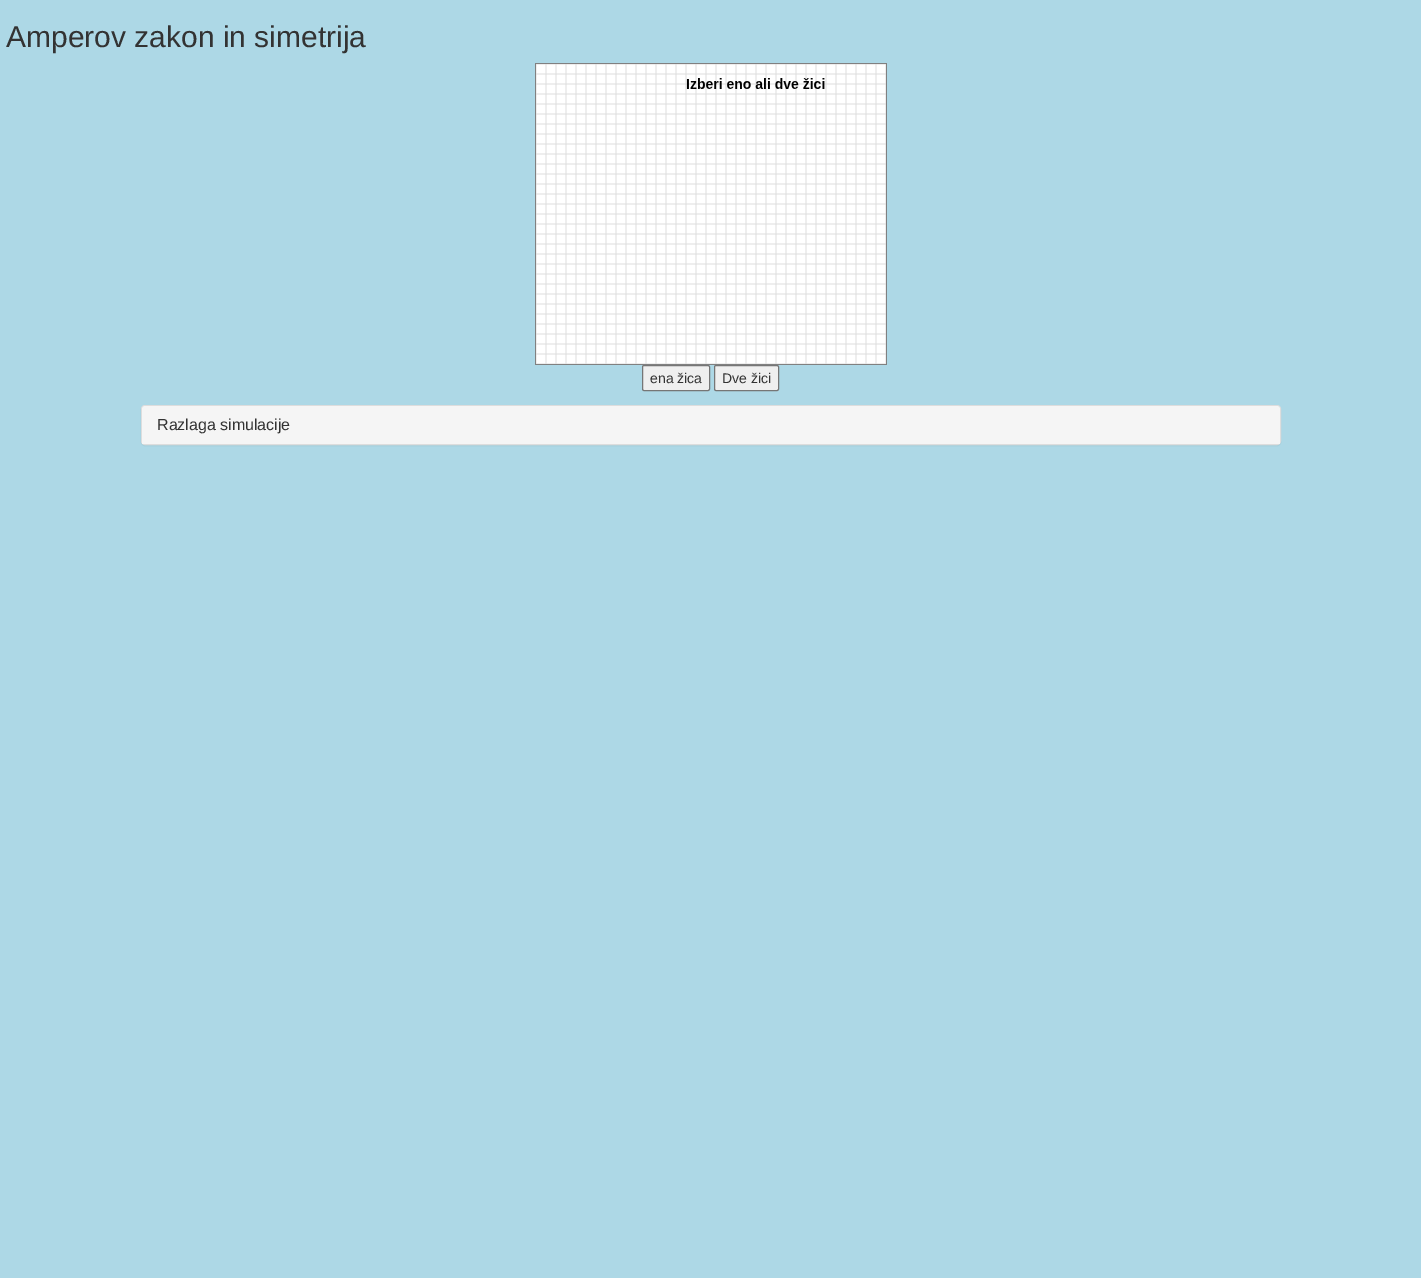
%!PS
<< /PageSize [1421 1278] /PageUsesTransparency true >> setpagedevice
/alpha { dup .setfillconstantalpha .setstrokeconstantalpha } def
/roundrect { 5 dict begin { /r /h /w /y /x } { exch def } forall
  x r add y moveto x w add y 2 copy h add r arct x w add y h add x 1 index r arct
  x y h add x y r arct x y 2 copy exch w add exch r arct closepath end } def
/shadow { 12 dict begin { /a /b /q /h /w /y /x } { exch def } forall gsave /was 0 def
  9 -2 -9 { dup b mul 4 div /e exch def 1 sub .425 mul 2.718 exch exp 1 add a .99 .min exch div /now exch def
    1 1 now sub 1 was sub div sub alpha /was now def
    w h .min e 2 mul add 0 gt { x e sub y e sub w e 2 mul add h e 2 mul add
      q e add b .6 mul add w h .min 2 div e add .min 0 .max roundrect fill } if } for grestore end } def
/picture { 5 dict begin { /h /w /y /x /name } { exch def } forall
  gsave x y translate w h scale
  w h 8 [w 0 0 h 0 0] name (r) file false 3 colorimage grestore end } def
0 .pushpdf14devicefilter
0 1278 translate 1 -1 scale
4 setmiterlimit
0.678 0.847 0.902 setrgbcolor
0 0 1421 1278 rectfill
/LiberationSans-Regular [30 0 0 -30 0 0] selectfont
0.2 setgray
6 47 moveto (Amperov zakon in simetrija) show
1 setgray
536 64 350 300 rectfill
0.502 setgray
535 63 352 1 rectfill
886 63 1 302 rectfill
535 364 352 1 rectfill
535 63 1 302 rectfill
(img1.rgb) 536 64 350 300 picture
(img2.rgb) 686 78 139 11 picture
0.937 setgray
642.5 365.5 67 25 1.5 roundrect gsave fill grestore
0.463 setgray
stroke
/LiberationSans-Regular [14 0 0 -14 0 0] selectfont
0.2 setgray
650 383 moveto (ena žica) show
0.937 setgray
714.5 365.5 64 25 1.5 roundrect gsave fill grestore
0.463 setgray
stroke
0.2 setgray
722 383 moveto (Dve žici) show
0 setgray
141 406 1140 40 4 0.5 0.05 shadow
0.867 setgray
141.5 405.5 1139 39 3.5 roundrect stroke
0.961 setgray
newpath 145 406 moveto 1277 406 lineto 1278.5 406 1280 407.5 1280 409 curveto 1280 444 lineto 142 444 lineto 142 409 lineto 142 407.5 143.5 406 145 406 curveto closepath fill
/LiberationSans-Regular [16 0 0 -16 0 0] selectfont
0.2 setgray
157 430 moveto (Razlaga simulacije) show
.poppdf14devicefilter showpage
